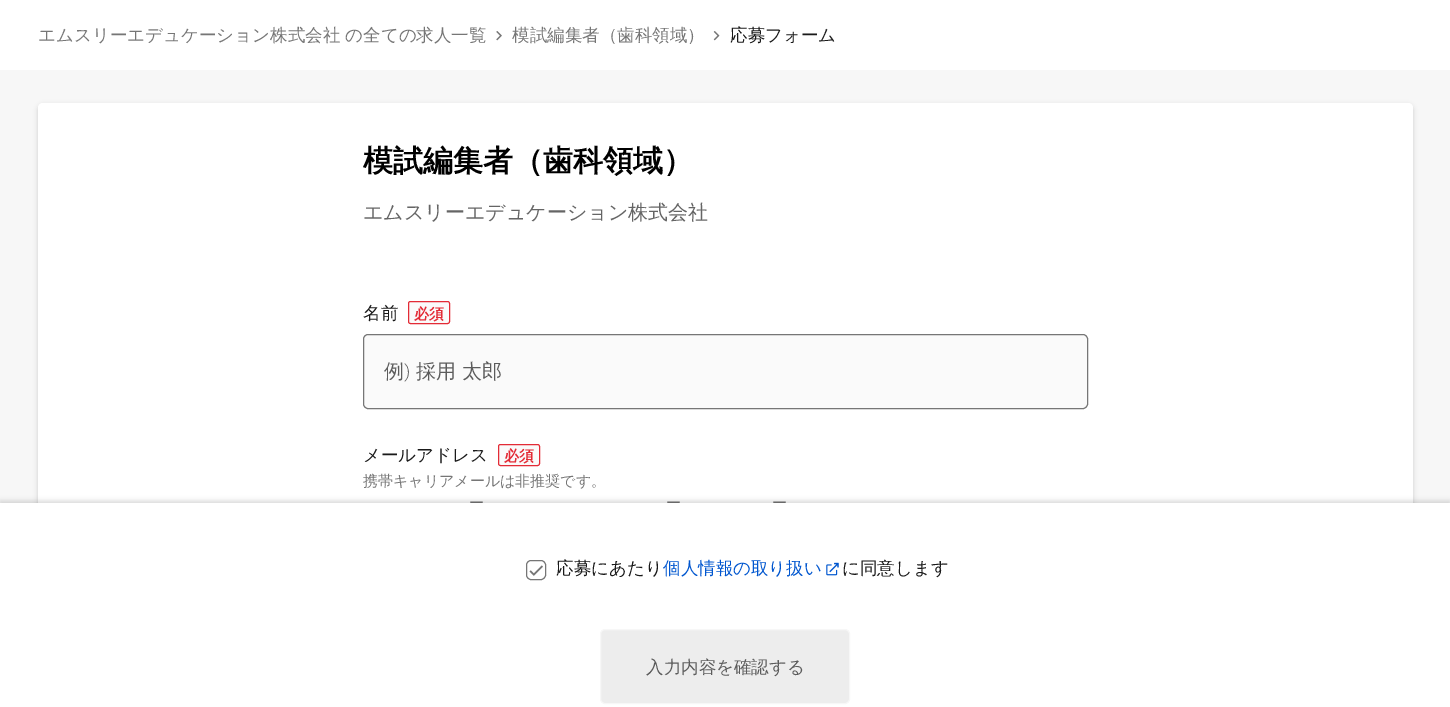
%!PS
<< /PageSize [1450 707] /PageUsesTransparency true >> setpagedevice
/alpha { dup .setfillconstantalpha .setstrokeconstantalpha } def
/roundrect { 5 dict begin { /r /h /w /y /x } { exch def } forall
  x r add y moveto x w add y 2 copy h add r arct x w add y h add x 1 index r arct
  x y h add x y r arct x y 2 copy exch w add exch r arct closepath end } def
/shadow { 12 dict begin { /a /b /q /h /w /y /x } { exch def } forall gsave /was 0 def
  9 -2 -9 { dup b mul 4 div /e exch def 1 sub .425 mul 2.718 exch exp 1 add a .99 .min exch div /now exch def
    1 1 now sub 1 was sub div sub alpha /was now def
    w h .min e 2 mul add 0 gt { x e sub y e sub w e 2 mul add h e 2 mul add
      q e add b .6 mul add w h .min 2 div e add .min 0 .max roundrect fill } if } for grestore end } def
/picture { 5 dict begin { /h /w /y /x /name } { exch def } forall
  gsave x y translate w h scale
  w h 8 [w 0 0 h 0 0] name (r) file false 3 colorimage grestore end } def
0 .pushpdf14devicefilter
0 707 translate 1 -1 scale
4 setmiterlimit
0.969 setgray
0 0 1450 707 rectfill
1 setgray
0 0 1450 70 rectfill
/WenQuanYiZenHei-Medium [17.5 0 0 -17.5 0 0] selectfont
0.463 setgray
38 41 moveto (エムスリーエデュケーション株式会社 の全ての求人一覧) show
(img1.rgb) 496 31 6 10 picture
512 41 moveto (模試編集者（歯科領域）) show
(img2.rgb) 713 31 7 10 picture
0.102 setgray
730 41 moveto (応募フォーム) show
0 setgray
38 105 1375 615 5 2.5 0.15 shadow
1 setgray
newpath 43 103 moveto 1408 103 lineto 1411 103 1413 105 1413 108 curveto 1413 266 lineto 38 266 lineto 38 108 lineto 38 105 40 103 43 103 curveto closepath fill
/WenQuanYiZenHei-Bold [30 0 0 -30 0 0] selectfont
0 setgray
363 171 moveto (模試編集者（歯科領域）) show
/WenQuanYiZenHei-Medium [20 0 0 -20 0 0] selectfont
0.396 setgray
363 219 moveto (エムスリーエデュケーション株式会社) show
1 setgray
38 266 1375 237 rectfill
/WenQuanYiZenHei-Medium [17.5 0 0 -17.5 0 0] selectfont
0.102 setgray
363 319 moveto (名前) show
0.98 setgray
408.5 301.5 41 22 2 roundrect gsave fill grestore
0.89 0.169 0.212 setrgbcolor
stroke
/WenQuanYiZenHei-Bold [15 0 0 -15 0 0] selectfont
414 319 moveto (必須) show
0.98 setgray
363.5 334.5 724 74 4.5 roundrect gsave fill grestore
0.463 setgray
stroke
/WenQuanYiZenHei-Medium [20 0 0 -20 0 0] selectfont
0.361 setgray
384 378 moveto (例) show
/WorkSans-Light [20 0 0 -20 0 0] selectfont
404 378 moveto (\)) show
/WenQuanYiZenHei-Medium [20 0 0 -20 0 0] selectfont
416 378 moveto (採用 太郎) show
/WenQuanYiZenHei-Medium [17.5 0 0 -17.5 0 0] selectfont
0.102 setgray
363 461 moveto (メールアドレス) show
0.98 setgray
498.5 444.5 41 21 2 roundrect gsave fill grestore
0.89 0.169 0.212 setrgbcolor
stroke
/WenQuanYiZenHei-Bold [15 0 0 -15 0 0] selectfont
504 461 moveto (必須) show
/WenQuanYiZenHei-Medium [15 0 0 -15 0 0] selectfont
0.463 setgray
363 486 moveto (携帯キャリアメールは非推奨です。) show
469 508 moveto (ー) show
666 508 moveto (ー) show
772 508 moveto (ー) show
0 setgray
0 501 1450 205 0 2.5 0.15 shadow
1 setgray
0 503 1450 204 rectfill
0.463 setgray
526.5 560.5 19 19 4.5 roundrect stroke
(img3.rgb) 529 565 14 11 picture
/WenQuanYiZenHei-Medium [17.5 0 0 -17.5 0 0] selectfont
0.102 setgray
556 574 moveto (応募にあたり) show
0 0.337 0.812 setrgbcolor
663 574 moveto (個人情報の取り扱い) show
(img4.rgb) 826 562 13 14 picture
0.102 setgray
842 574 moveto (に同意します) show
0.929 setgray
600.5 629.5 249 74 4.5 roundrect gsave fill grestore
0.969 setgray
stroke
0.361 setgray
646 673 moveto (入力内容を確認する) show
.poppdf14devicefilter showpage
